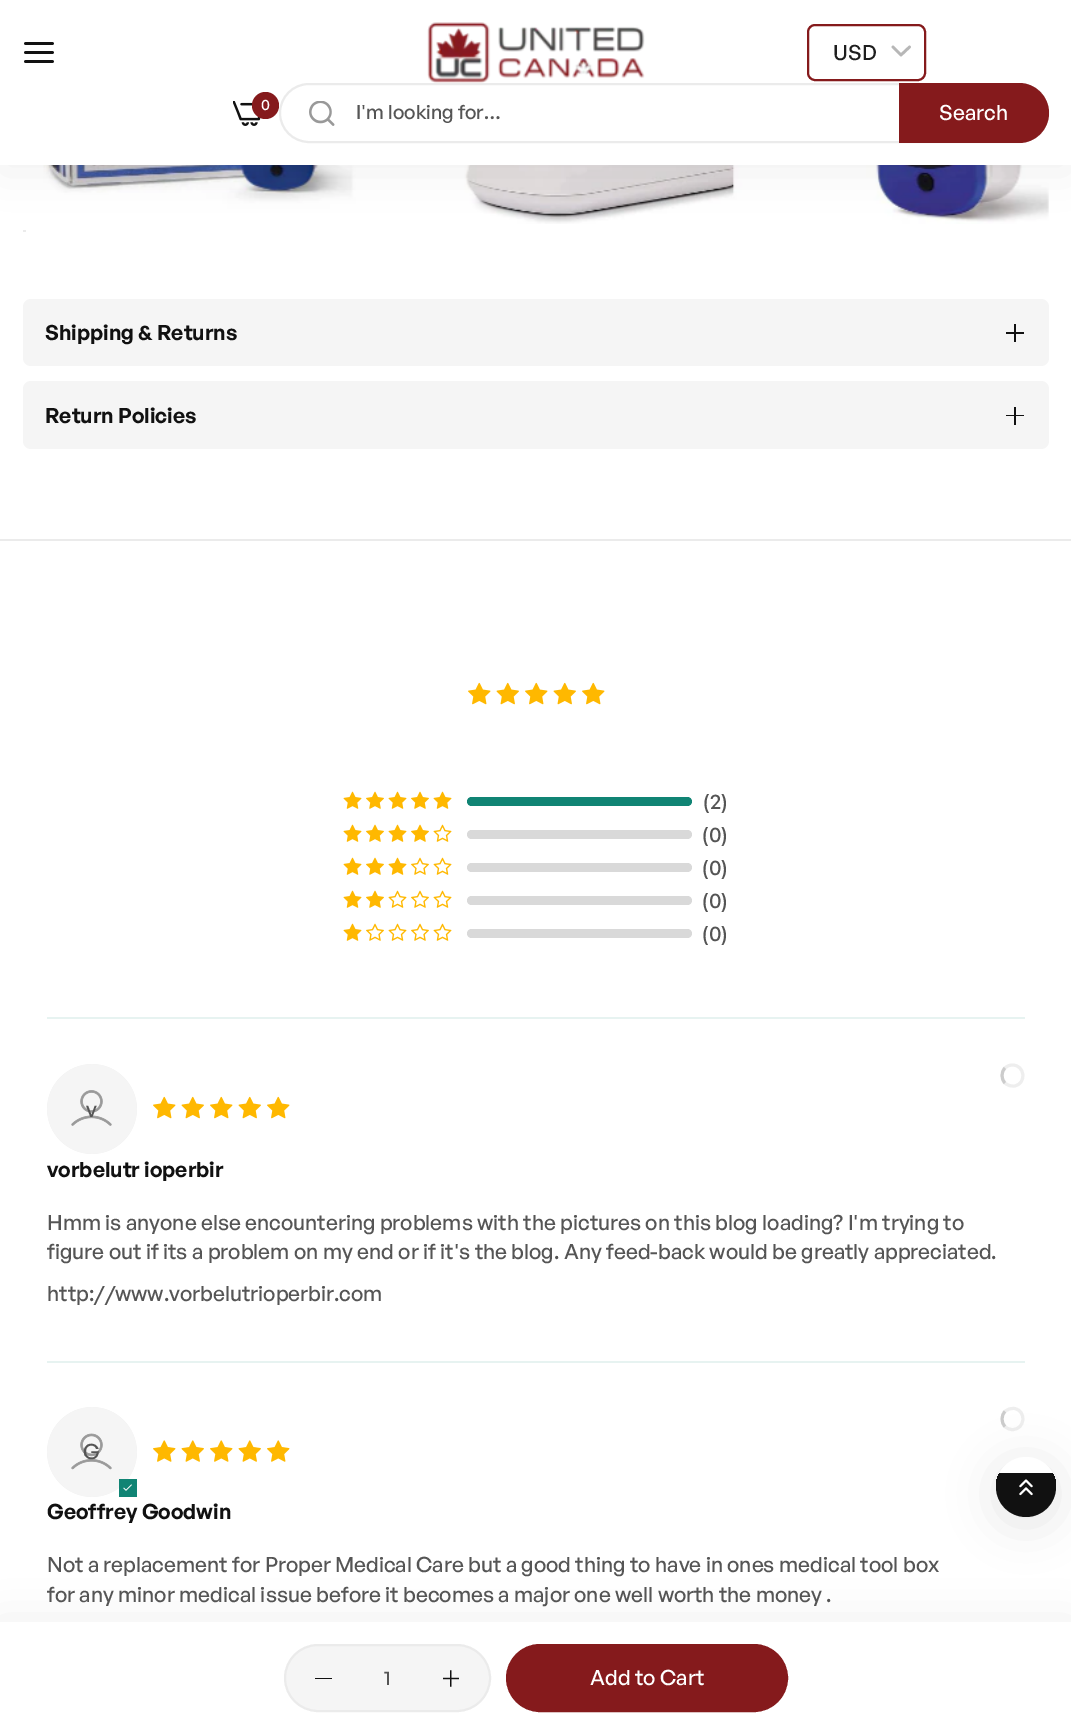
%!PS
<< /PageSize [1071 1734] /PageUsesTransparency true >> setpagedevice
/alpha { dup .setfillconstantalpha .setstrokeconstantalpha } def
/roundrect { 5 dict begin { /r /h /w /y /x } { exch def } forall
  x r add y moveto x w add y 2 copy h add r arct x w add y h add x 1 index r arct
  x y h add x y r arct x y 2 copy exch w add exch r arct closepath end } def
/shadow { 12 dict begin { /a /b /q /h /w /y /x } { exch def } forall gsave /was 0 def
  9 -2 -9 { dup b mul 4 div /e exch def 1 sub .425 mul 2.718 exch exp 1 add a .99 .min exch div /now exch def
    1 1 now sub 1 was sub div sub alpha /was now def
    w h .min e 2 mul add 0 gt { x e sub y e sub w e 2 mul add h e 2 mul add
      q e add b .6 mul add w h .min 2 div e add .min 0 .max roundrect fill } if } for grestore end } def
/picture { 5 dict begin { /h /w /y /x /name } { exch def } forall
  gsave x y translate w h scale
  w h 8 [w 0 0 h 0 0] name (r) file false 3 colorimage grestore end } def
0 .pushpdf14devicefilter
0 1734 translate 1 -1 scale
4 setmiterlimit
1 setgray
0 0 1071 1734 rectfill
(img5.rgb) 43 165 1006 59 picture
0.922 setgray
23 230 3 2 rectfill
0 setgray
0 8 1071 165 0 22.5 0.05 shadow
1 setgray
0 0 1071 165 rectfill
(img1.rgb) 24 42 30 21 picture
(img2.rgb) 427 22 218 61 picture
0.522 0.102 0.11 setrgbcolor
2 setlinewidth
808 25 117 55 7 roundrect stroke
/GeneralSans-Medium [21 0 0 -21 0 0] selectfont
0.118 setgray
833 60 moveto (USD) show
0.718 setgray
2.7 setlinewidth
1 setlinecap
1 setlinejoin
newpath 893 47 moveto 901 55 lineto 909.5 47 lineto stroke
(img3.rgb) 233 101 28 25 picture
0.522 0.102 0.11 setrgbcolor
newpath 265.5 105.5 13.5 0 360 arc closepath fill
/GeneralSans-Medium [15 0 0 -15 0 0] selectfont
1 setgray
261 110 moveto (0) show
0.922 setgray
2 setlinewidth
0 setlinecap
0 setlinejoin
280 84 768 58 29 roundrect stroke
(img4.rgb) 309 101 26 25 picture
/GeneralSans-Medium [19.5 0 0 -19.5 0 0] selectfont
0.333 setgray
356 119 moveto (I'm looking for…) show
0.522 0.102 0.11 setrgbcolor
newpath 899 83 moveto 1019 83 lineto 1035.5 83 1049 96.5 1049 113 curveto 1049 129.5 1035.5 143 1019 143 curveto 899 143 lineto closepath fill
/GeneralSans-Medium [21 0 0 -21 0 0] selectfont
1 setgray
939 120 moveto (Search) show
0.922 setgray
0 539 1071 2 rectfill
0.961 setgray
23 299 1026 67 8 roundrect fill
/GeneralSans-SemiBold [21 0 0 -21 0 0] selectfont
0.067 setgray
45 340 moveto (Shipping & Returns) show
1014 324 2 18 rectfill
1006 332 18 2 rectfill
0.961 setgray
23 381 1026 68 8 roundrect fill
0.067 setgray
45 423 moveto (Return Policies) show
1014 407 2 18 rectfill
1006 415 18 1 rectfill
(img6.rgb) 468 682 23 23 picture
(img7.rgb) 496 682 23 23 picture
(img6.rgb) 525 682 23 23 picture
(img7.rgb) 553 682 23 23 picture
(img6.rgb) 582 682 23 23 picture
(img8.rgb) 343 791 19 18 picture
(img9.rgb) 366 791 18 18 picture
(img8.rgb) 388 791 19 18 picture
(img9.rgb) 411 791 18 18 picture
(img8.rgb) 433 791 19 18 picture
0.063 0.518 0.455 setrgbcolor
467 797 225 9 4.5 roundrect fill
/GeneralSans-Medium [21 0 0 -21 0 0] selectfont
0.333 setgray
703 809 moveto (\(2\)) show
(img8.rgb) 343 824 19 18 picture
(img9.rgb) 366 824 18 18 picture
(img8.rgb) 388 824 19 18 picture
(img9.rgb) 411 824 18 18 picture
(img10.rgb) 433 824 19 18 picture
0.851 setgray
467 830 225 9 4.5 roundrect fill
0.333 setgray
702 842 moveto (\(0\)) show
(img8.rgb) 343 857 19 18 picture
(img9.rgb) 366 857 18 18 picture
(img8.rgb) 388 857 19 18 picture
(img11.rgb) 411 857 18 18 picture
(img10.rgb) 433 857 19 18 picture
0.851 setgray
467 863 225 9 4.5 roundrect fill
0.333 setgray
702 875 moveto (\(0\)) show
(img8.rgb) 343 890 19 18 picture
(img9.rgb) 366 890 18 18 picture
(img10.rgb) 388 890 19 18 picture
(img11.rgb) 411 890 18 18 picture
(img10.rgb) 433 890 19 18 picture
0.851 setgray
467 896 225 9 4.5 roundrect fill
0.333 setgray
702 908 moveto (\(0\)) show
(img8.rgb) 343 923 19 18 picture
(img11.rgb) 366 923 18 18 picture
(img10.rgb) 388 923 19 18 picture
(img11.rgb) 411 923 18 18 picture
(img10.rgb) 433 923 19 18 picture
0.851 setgray
467 929 225 9 4.5 roundrect fill
0.333 setgray
702 941 moveto (\(0\)) show
0.906 0.953 0.945 setrgbcolor
47 1017 978 2 rectfill
0.933 setgray
3 setlinewidth
newpath 1005 1068 moveto 1007 1066 1009.5 1065 1012.5 1065 curveto 1025 1065 1027 1083.5 1014.5 1086 curveto 1011 1086.5 1007.5 1085.5 1005 1083 curveto stroke
0.8 setgray
newpath 1005 1083 moveto 1001 1079 1001 1072 1005 1068 curveto stroke
0.941 setgray
newpath 92 1109 45 0 360 arc closepath fill
(img12.rgb) 47 1064 90 90 picture
0.333 setgray
86 1117 moveto (v) show
(img6.rgb) 153 1096 23 23 picture
(img7.rgb) 181 1096 23 23 picture
(img6.rgb) 210 1096 23 23 picture
(img7.rgb) 238 1096 23 23 picture
(img6.rgb) 267 1096 23 23 picture
/GeneralSans-SemiBold [21 0 0 -21 0 0] selectfont
0.067 setgray
47 1177 moveto (vorbelutr ioperbir) show
/GeneralSans-Medium [21 0 0 -21 0 0] selectfont
0.333 setgray
47 1230 moveto (Hmm is anyone else encountering problems with the pictures on this blog loading? I'm trying to) show
47 1259 moveto (figure out if its a problem on my end or if it's the blog. Any feed-back would be greatly appreciated.) show
47 1301 moveto (http://www.vorbelutrioperbir.com) show
0.906 0.953 0.945 setrgbcolor
47 1361 978 2 rectfill
0.933 setgray
newpath 1005 1411.5 moveto 1007.5 1409 1011 1408 1014.5 1408.5 curveto 1027 1411 1025 1429.5 1012.5 1429.5 curveto 1009.5 1429.5 1007 1428.5 1005 1426.5 curveto stroke
0.8 setgray
newpath 1005 1426.5 moveto 1001 1422.5 1001 1415.5 1005 1411.5 curveto stroke
0.941 setgray
newpath 92 1452 45 0 360 arc closepath fill
(img13.rgb) 47 1407 90 90 picture
0.333 setgray
83 1459 moveto (G) show
0.063 0.518 0.455 setrgbcolor
119 1479 18 18 rectfill
(img14.rgb) 123 1484 9 7 picture
(img15.rgb) 153 1440 23 22 picture
(img16.rgb) 181 1440 23 22 picture
(img15.rgb) 210 1440 23 22 picture
(img16.rgb) 238 1440 23 22 picture
(img15.rgb) 267 1440 23 22 picture
/GeneralSans-SemiBold [21 0 0 -21 0 0] selectfont
0.067 setgray
47 1519 moveto (Geoffrey Goodwin) show
/GeneralSans-Medium [21 0 0 -21 0 0] selectfont
0.333 setgray
47 1572 moveto (Not a replacement for Proper Medical Care but a good thing to have in ones medical tool box) show
47 1602 moveto (for any minor medical issue before it becomes a major one well worth the money .) show
0 setgray
0 1629 1071 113 0 22.5 0.08 shadow
1 setgray
0 1622 1071 112 rectfill
0.961 setgray
285 1645 205 66 33 roundrect gsave fill grestore
0.922 setgray
2 setlinewidth
stroke
0.067 setgray
315 1678 17 1 rectfill
/GeneralSans-Medium [19.5 0 0 -19.5 0 0] selectfont
0.333 setgray
384 1685 moveto (1) show
(img17.rgb) 443 1670 16 17 picture
0.522 0.102 0.11 setrgbcolor
507 1645 280 66 33 roundrect gsave fill grestore
stroke
/GeneralSans-Medium [21 0 0 -21 0 0] selectfont
1 setgray
590 1685 moveto (Add to Cart) show
0 setgray
996 1464 60 60 30 22.5 0.1 shadow
1 setgray
newpath 1026 1487 30 0 360 arc closepath fill
gsave
996 1457 60 60 30 roundrect clip newpath
0.067 setgray
newpath 996 1473 moveto 1056 1473 lineto 1056 1487 lineto 1056 1503.5 1042.5 1517 1026 1517 curveto 1009.5 1517 996 1503.5 996 1487 curveto closepath fill
grestore
(img18.rgb) 1019 1479 14 17 picture
.poppdf14devicefilter showpage
